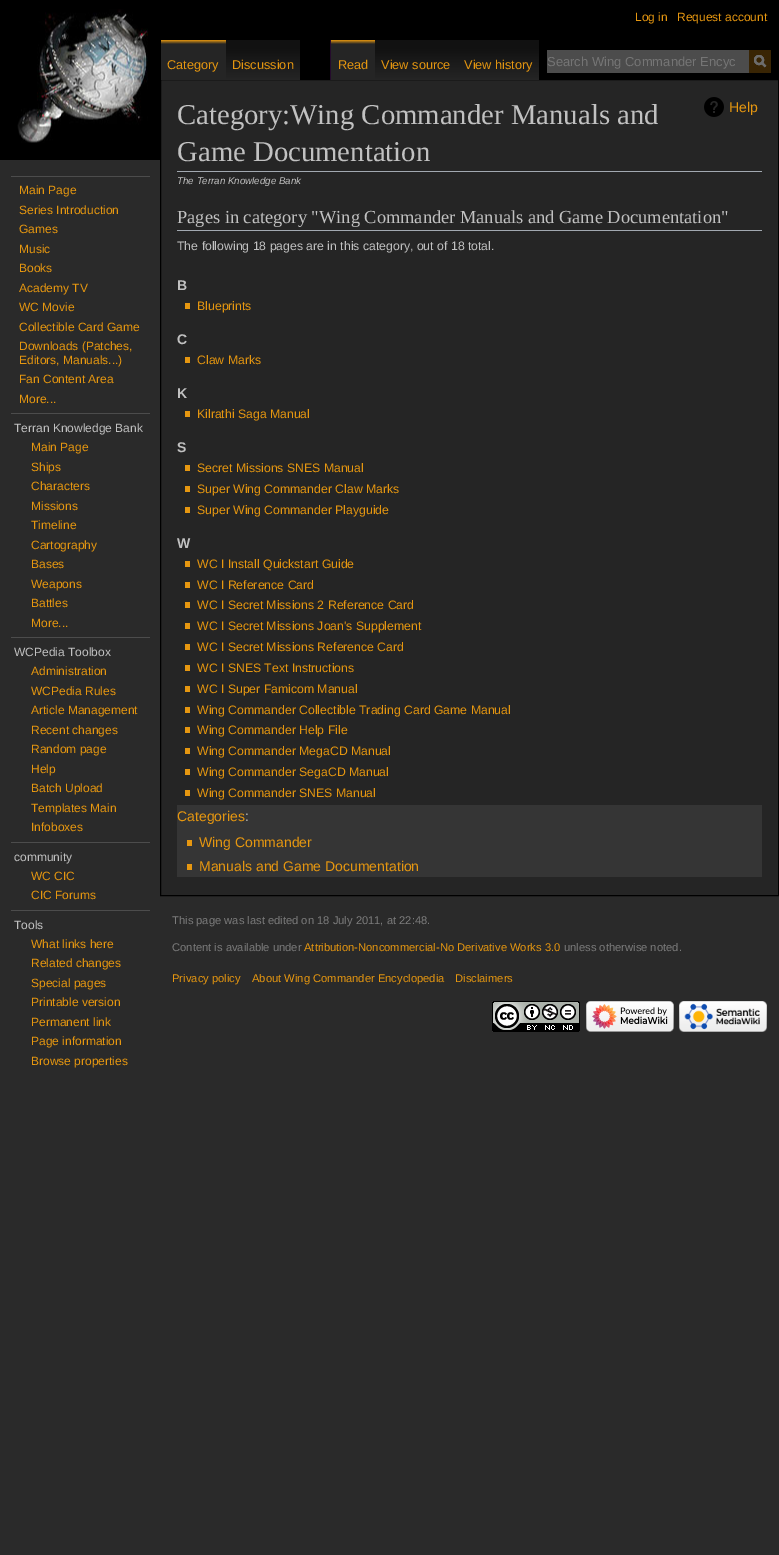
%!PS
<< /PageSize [779 1555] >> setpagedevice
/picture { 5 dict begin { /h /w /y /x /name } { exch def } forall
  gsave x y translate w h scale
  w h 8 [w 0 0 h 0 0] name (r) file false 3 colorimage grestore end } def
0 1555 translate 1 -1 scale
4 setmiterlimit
0.165 setgray
0 0 779 1555 rectfill
0 setgray
160 0 619 79 rectfill
/LiberationSans-Regular [12 0 0 -12 0 0] selectfont
0.902 0.592 0.063 setrgbcolor
635 21 moveto (Log in) show
677 21 moveto (Request account) show
0.145 setgray
newpath 160.5 79.5 moveto 778.5 79.5 lineto 778.5 895.5 lineto 160.5 895.5 lineto closepath gsave fill grestore
0 setgray
stroke
gsave newpath 161 40 moveto 226 40 lineto 226 80 lineto 161 80 lineto closepath clip newpath
<< /ShadingType 2 /ColorSpace /DeviceRGB /Coords [194 40 194 80] /Extend [true true] /Function << /FunctionType 3 /Domain [0 1] /Functions [<< /FunctionType 2 /Domain [0 1] /C0 [0.902 0.592 0.063] /C1 [0.145 0.145 0.145] /N 1 >> << /FunctionType 2 /Domain [0 1] /C0 [0.145 0.145 0.145] /C1 [0.145 0.145 0.145] /N 1 >>] /Bounds [0.1] /Encode [0 1 0 1] >> >> shfill grestore
/LiberationSans-Regular [12.75 0 0 -12.75 0 0] selectfont
0.902 0.592 0.063 setrgbcolor
167 69 moveto (Category) show
gsave newpath 226 40 moveto 300 40 lineto 300 80 lineto 226 80 lineto closepath clip newpath
<< /ShadingType 2 /ColorSpace /DeviceRGB /Coords [263 40 263 80] /Extend [true true] /Function << /FunctionType 3 /Domain [0 1] /Functions [<< /FunctionType 2 /Domain [0 1] /C0 [0.067 0.067 0.067] /C1 [0.067 0.067 0.067] /N 1 >> << /FunctionType 2 /Domain [0 1] /C0 [0.067 0.067 0.067] /C1 [0.145 0.145 0.145] /N 1 >>] /Bounds [0.2] /Encode [0 1 0 1] >> >> shfill grestore
232 69 moveto (Discussion) show
0.145 0.043 0.176 setrgbcolor
330 40 1 40 rectfill
gsave newpath 331 40 moveto 375 40 lineto 375 80 lineto 331 80 lineto closepath clip newpath
<< /ShadingType 2 /ColorSpace /DeviceRGB /Coords [353 40 353 80] /Extend [true true] /Function << /FunctionType 3 /Domain [0 1] /Functions [<< /FunctionType 2 /Domain [0 1] /C0 [0.902 0.592 0.063] /C1 [0.145 0.145 0.145] /N 1 >> << /FunctionType 2 /Domain [0 1] /C0 [0.145 0.145 0.145] /C1 [0.145 0.145 0.145] /N 1 >>] /Bounds [0.1] /Encode [0 1 0 1] >> >> shfill grestore
0.902 0.592 0.063 setrgbcolor
338 69 moveto (Read) show
gsave newpath 375 40 moveto 457 40 lineto 457 80 lineto 375 80 lineto closepath clip newpath
<< /ShadingType 2 /ColorSpace /DeviceRGB /Coords [416 40 416 80] /Extend [true true] /Function << /FunctionType 3 /Domain [0 1] /Functions [<< /FunctionType 2 /Domain [0 1] /C0 [0.067 0.067 0.067] /C1 [0.067 0.067 0.067] /N 1 >> << /FunctionType 2 /Domain [0 1] /C0 [0.067 0.067 0.067] /C1 [0.145 0.145 0.145] /N 1 >>] /Bounds [0.2] /Encode [0 1 0 1] >> >> shfill grestore
381 69 moveto (View source) show
gsave newpath 457 40 moveto 539 40 lineto 539 80 lineto 457 80 lineto closepath clip newpath
<< /ShadingType 2 /ColorSpace /DeviceRGB /Coords [498 40 498 80] /Extend [true true] /Function << /FunctionType 3 /Domain [0 1] /Functions [<< /FunctionType 2 /Domain [0 1] /C0 [0.067 0.067 0.067] /C1 [0.067 0.067 0.067] /N 1 >> << /FunctionType 2 /Domain [0 1] /C0 [0.067 0.067 0.067] /C1 [0.145 0.145 0.145] /N 1 >>] /Bounds [0.2] /Encode [0 1 0 1] >> >> shfill grestore
464 69 moveto (View history) show
0.224 0.145 0.016 setrgbcolor
749 50 22 23 rectfill
0.424 setgray
2 setlinewidth
newpath 765.5 66.5 moveto 761.5 62.5 lineto stroke
newpath 759 60 4 0 360 arc closepath stroke
0.298 setgray
547 50 202 23 rectfill
/LiberationSans-Regular [13 0 0 -13 0 0] selectfont
0.459 setgray
547 66 moveto (Search Wing Commander Encyc) show
0.424 setgray
newpath 765.5 66.5 moveto 761.5 62.5 lineto stroke
newpath 759 60 4 0 360 arc closepath stroke
0 setgray
0 0 160 160 rectfill
(img1.rgb) 17 9 131 134 picture
0.298 setgray
11 176 139 1 rectfill
/LiberationSans-Regular [12 0 0 -12 0 0] selectfont
0.902 0.592 0.063 setrgbcolor
19 194 moveto (Main Page) show
19 214 moveto (Series Introduction) show
19 233 moveto (Games) show
19 253 moveto (Music) show
19 272 moveto (Books) show
19 292 moveto (Academy TV) show
19 311 moveto (WC Movie) show
19 331 moveto (Collectible Card Game) show
19 350 moveto (Downloads \(Patches,) show
19 364 moveto (Editors, Manuals...\)) show
19 383 moveto (Fan Content Area) show
19 403 moveto (More...) show
0.298 setgray
11 413 139 1 rectfill
0.757 setgray
14 432 moveto (Terran Knowledge Bank) show
0.902 0.592 0.063 setrgbcolor
31 451 moveto (Main Page) show
31 471 moveto (Ships) show
31 490 moveto (Characters) show
31 510 moveto (Missions) show
31 529 moveto (Timeline) show
31 549 moveto (Cartography) show
31 568 moveto (Bases) show
31 588 moveto (Weapons) show
31 607 moveto (Battles) show
31 627 moveto (More...) show
0.298 setgray
11 637 139 1 rectfill
0.757 setgray
14 656 moveto (WCPedia Toolbox) show
0.902 0.592 0.063 setrgbcolor
31 675 moveto (Administration) show
31 695 moveto (WCPedia Rules) show
31 714 moveto (Article Management) show
31 734 moveto (Recent changes) show
31 753 moveto (Random page) show
31 773 moveto (Help) show
31 792 moveto (Batch Upload) show
31 812 moveto (Templates Main) show
31 831 moveto (Infoboxes) show
0.298 setgray
11 842 139 1 rectfill
0.757 setgray
14 861 moveto (community) show
0.902 0.592 0.063 setrgbcolor
31 880 moveto (WC CIC) show
31 899 moveto (CIC Forums) show
0.298 setgray
11 910 139 1 rectfill
0.757 setgray
14 929 moveto (Tools) show
0.902 0.592 0.063 setrgbcolor
31 948 moveto (What links here) show
31 967 moveto (Related changes) show
31 987 moveto (Special pages) show
31 1006 moveto (Printable version) show
31 1026 moveto (Permanent link) show
31 1045 moveto (Page information) show
31 1065 moveto (Browse properties) show
0.635 0.663 0.694 setrgbcolor
177 171 585 1 rectfill
/LiberationSerif-Regular [28.75 0 0 -28.75 0 0] selectfont
0.757 setgray
177 124 moveto (Category:Wing Commander Manuals and) show
177 161 moveto (Game Documentation) show
(img2.rgb) 704 97 20 20 picture
/LiberationSans-Regular [14 0 0 -14 0 0] selectfont
0.902 0.592 0.063 setrgbcolor
729 112 moveto (Help) show
/LiberationSans-Italic [9.75 0 0 -9.75 0 0] selectfont
0.757 setgray
177 184 moveto (The Terran Knowledge Bank) show
0.635 0.663 0.694 setrgbcolor
177 230 585 1 rectfill
/LiberationSerif-Regular [18.4 0 0 -18.4 0 0] selectfont
0.757 setgray
177 223 moveto (Pages in category "Wing Commander Manuals and Game Documentation") show
/LiberationSans-Regular [12.25 0 0 -12.25 0 0] selectfont
177 250 moveto (The following 18 pages are in this category, out of 18 total.) show
/LiberationSans-Bold [14 0 0 -14 0 0] selectfont
177 290 moveto (B) show
0.902 0.592 0.063 setrgbcolor
185 303 5 6 rectfill
/LiberationSans-Regular [12.25 0 0 -12.25 0 0] selectfont
197 310 moveto (Blueprints) show
/LiberationSans-Bold [14 0 0 -14 0 0] selectfont
0.757 setgray
177 344 moveto (C) show
0.902 0.592 0.063 setrgbcolor
185 357 5 6 rectfill
/LiberationSans-Regular [12.25 0 0 -12.25 0 0] selectfont
197 364 moveto (Claw Marks) show
/LiberationSans-Bold [14 0 0 -14 0 0] selectfont
0.757 setgray
177 398 moveto (K) show
0.902 0.592 0.063 setrgbcolor
185 411 5 6 rectfill
/LiberationSans-Regular [12.25 0 0 -12.25 0 0] selectfont
197 418 moveto (Kilrathi Saga Manual) show
/LiberationSans-Bold [14 0 0 -14 0 0] selectfont
0.757 setgray
177 452 moveto (S) show
0.902 0.592 0.063 setrgbcolor
185 465 5 6 rectfill
/LiberationSans-Regular [12.25 0 0 -12.25 0 0] selectfont
197 472 moveto (Secret Missions SNES Manual) show
185 486 5 6 rectfill
197 493 moveto (Super Wing Commander Claw Marks) show
185 507 5 6 rectfill
197 514 moveto (Super Wing Commander Playguide) show
/LiberationSans-Bold [14 0 0 -14 0 0] selectfont
0.757 setgray
177 548 moveto (W) show
0.902 0.592 0.063 setrgbcolor
185 561 5 6 rectfill
/LiberationSans-Regular [12.25 0 0 -12.25 0 0] selectfont
197 568 moveto (WC I Install Quickstart Guide) show
185 582 5 6 rectfill
197 589 moveto (WC I Reference Card) show
185 602 5 6 rectfill
197 609 moveto (WC I Secret Missions 2 Reference Card) show
185 623 5 6 rectfill
197 630 moveto (WC I Secret Missions Joan's Supplement) show
185 644 5 6 rectfill
197 651 moveto (WC I Secret Missions Reference Card) show
185 665 5 6 rectfill
197 672 moveto (WC I SNES Text Instructions) show
185 686 5 6 rectfill
197 693 moveto (WC I Super Famicom Manual) show
185 707 5 6 rectfill
197 714 moveto (Wing Commander Collectible Trading Card Game Manual) show
185 727 5 6 rectfill
197 734 moveto (Wing Commander Help File) show
185 748 5 6 rectfill
197 755 moveto (Wing Commander MegaCD Manual) show
185 769 5 6 rectfill
197 776 moveto (Wing Commander SegaCD Manual) show
185 790 5 6 rectfill
197 797 moveto (Wing Commander SNES Manual) show
0.208 setgray
177 805 585 72 rectfill
/LiberationSans-Regular [14 0 0 -14 0 0] selectfont
0.902 0.592 0.063 setrgbcolor
177 821 moveto (Categories) show
0.757 setgray
245 821 moveto (:) show
0.902 0.592 0.063 setrgbcolor
187 840 5 6 rectfill
199 847 moveto (Wing Commander) show
187 864 5 6 rectfill
199 871 moveto (Manuals and Game Documentation) show
/LiberationSans-Regular [11.2 0 0 -11.2 0 0] selectfont
0.486 setgray
172 924 moveto (This page was last edited on 18 July 2011, at 22:48.) show
172 951 moveto (Content is available under) show
0.902 0.592 0.063 setrgbcolor
304 951 moveto (Attribution-Noncommercial-No Derivative Works 3.0) show
0.486 setgray
564 951 moveto (unless otherwise noted.) show
0.902 0.592 0.063 setrgbcolor
172 982 moveto (Privacy policy) show
252 982 moveto (About Wing Commander Encyclopedia) show
455 982 moveto (Disclaimers) show
(img3.rgb) 492 1001 88 31 picture
(img4.rgb) 586 1001 88 31 picture
(img5.rgb) 679 1001 88 31 picture
showpage
